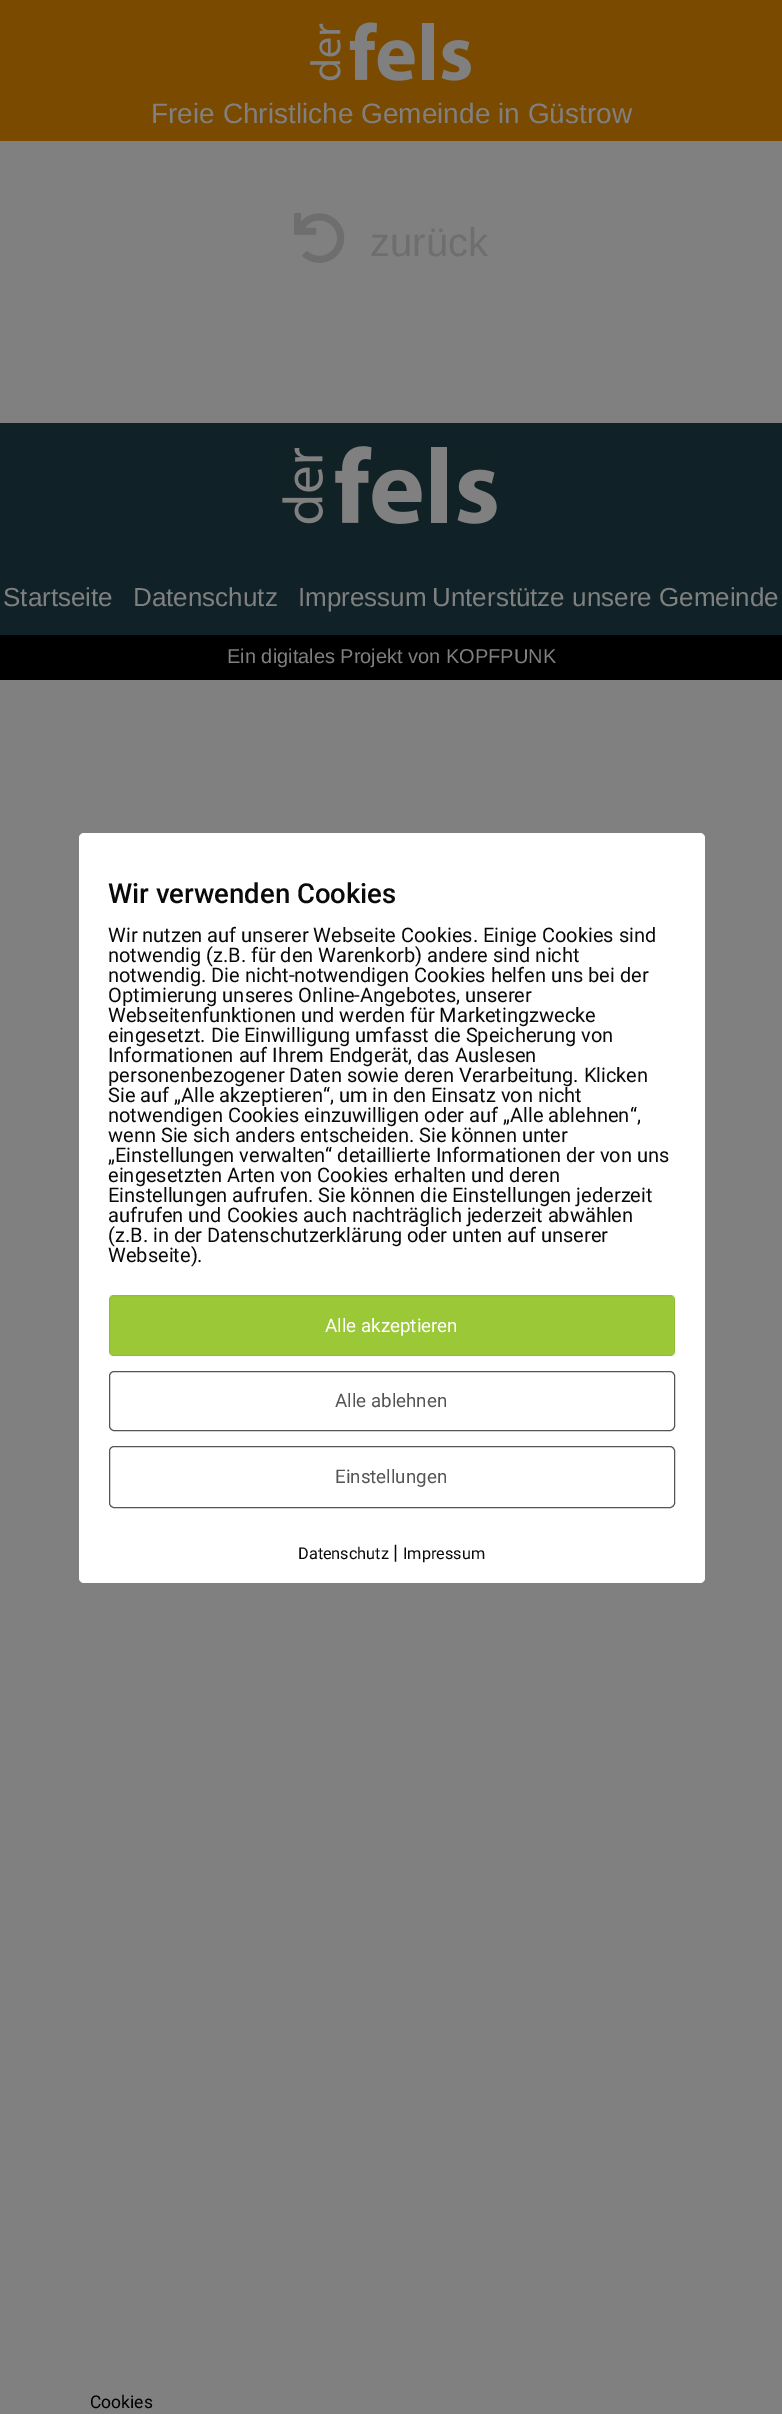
%!PS
<< /PageSize [782 2414] /PageUsesTransparency true >> setpagedevice
/alpha { dup .setfillconstantalpha .setstrokeconstantalpha } def
/roundrect { 5 dict begin { /r /h /w /y /x } { exch def } forall
  x r add y moveto x w add y 2 copy h add r arct x w add y h add x 1 index r arct
  x y h add x y r arct x y 2 copy exch w add exch r arct closepath end } def
/picture { 5 dict begin { /h /w /y /x /name } { exch def } forall
  gsave x y translate w h scale
  w h 8 [w 0 0 h 0 0] name (r) file false 3 colorimage grestore end } def
0 .pushpdf14devicefilter
0 2414 translate 1 -1 scale
4 setmiterlimit
0.502 setgray
0 0 782 2414 rectfill
0.475 0.29 0 setrgbcolor
0 0 782 141 rectfill
(img1.rgb) 310 22 161 59 picture
/LiberationSans-Regular [28 0 0 -28 0 0] selectfont
0.502 setgray
151 123 moveto (Freie Christliche Gemeinde in Güstrow) show
(img2.rgb) 294 213 51 50 picture
/LiberationSans-Regular [40 0 0 -40 0 0] selectfont
0.431 setgray
370 256 moveto (zurück) show
0.063 0.133 0.153 setrgbcolor
0 423 782 212 rectfill
(img3.rgb) 282 446 215 78 picture
/LiberationSans-Regular [26 0 0 -26 0 0] selectfont
0.502 setgray
3 606 moveto (Startseite) show
133 606 moveto (Datenschutz) show
298 606 moveto (Impressum) show
432 606 moveto (Unterstütze unsere Gemeinde) show
0 setgray
0 635 782 45 rectfill
/LiberationSans-Regular [20 0 0 -20 0 0] selectfont
0.502 setgray
227 663 moveto (Ein digitales Projekt von KOPFPUNK) show
1 setgray
79 833 626 750 5 roundrect fill
/Roboto-Medium [27.5 0 0 -27.5 0 0] selectfont
0.039 setgray
108 903 moveto (Wir verwenden Cookies) show
/Roboto-Regular [20 0 0 -20 0 0] selectfont
108 942 moveto (Wir nutzen auf unserer Webseite Cookies. Einige Cookies sind) show
108 962 moveto (notwendig \(z.B. für den Warenkorb\) andere sind nicht) show
108 982 moveto (notwendig. Die nicht-notwendigen Cookies helfen uns bei der) show
108 1002 moveto (Optimierung unseres Online-Angebotes, unserer) show
108 1022 moveto (Webseitenfunktionen und werden für Marketingzwecke) show
108 1042 moveto (eingesetzt. Die Einwilligung umfasst die Speicherung von) show
108 1062 moveto (Informationen auf Ihrem Endgerät, das Auslesen) show
108 1082 moveto (personenbezogener Daten sowie deren Verarbeitung. Klicken) show
108 1102 moveto (Sie auf „Alle akzeptieren“, um in den Einsatz von nicht) show
108 1122 moveto (notwendigen Cookies einzuwilligen oder auf „Alle ablehnen“,) show
108 1142 moveto (wenn Sie sich anders entscheiden. Sie können unter) show
108 1162 moveto („Einstellungen verwalten“ detaillierte Informationen der von uns) show
108 1182 moveto (eingesetzten Arten von Cookies erhalten und deren) show
108 1202 moveto (Einstellungen aufrufen. Sie können die Einstellungen jederzeit) show
108 1222 moveto (aufrufen und Cookies auch nachträglich jederzeit abwählen) show
108 1242 moveto (\(z.B. in der Datenschutzerklärung oder unten auf unserer) show
108 1262 moveto (Webseite\).) show
0.604 0.784 0.212 setrgbcolor
109 1295 566 61 5 roundrect fill
0.06 alpha
0 setgray
109.5 1295.5 565 60 rectstroke
/Roboto-Regular [18.75 0 0 -18.75 0 0] selectfont
1 alpha
1 setgray
325 1332 moveto (Alle akzeptieren) show
0.333 setgray
109.5 1371.5 565 59 4.5 roundrect stroke
335 1407 moveto (Alle ablehnen) show
109.5 1446.5 565 61 4.5 roundrect stroke
335 1483 moveto (Einstellungen) show
/Roboto-Regular [16.25 0 0 -16.25 0 0] selectfont
0.039 setgray
298 1559 moveto (Datenschutz) show
/Roboto-Regular [20 0 0 -20 0 0] selectfont
393 1559 moveto (|) show
/Roboto-Regular [16.25 0 0 -16.25 0 0] selectfont
403 1559 moveto (Impressum) show
/Roboto-Regular [17.5 0 0 -17.5 0 0] selectfont
0 setgray
90 2408 moveto (Cookies) show
.poppdf14devicefilter showpage
